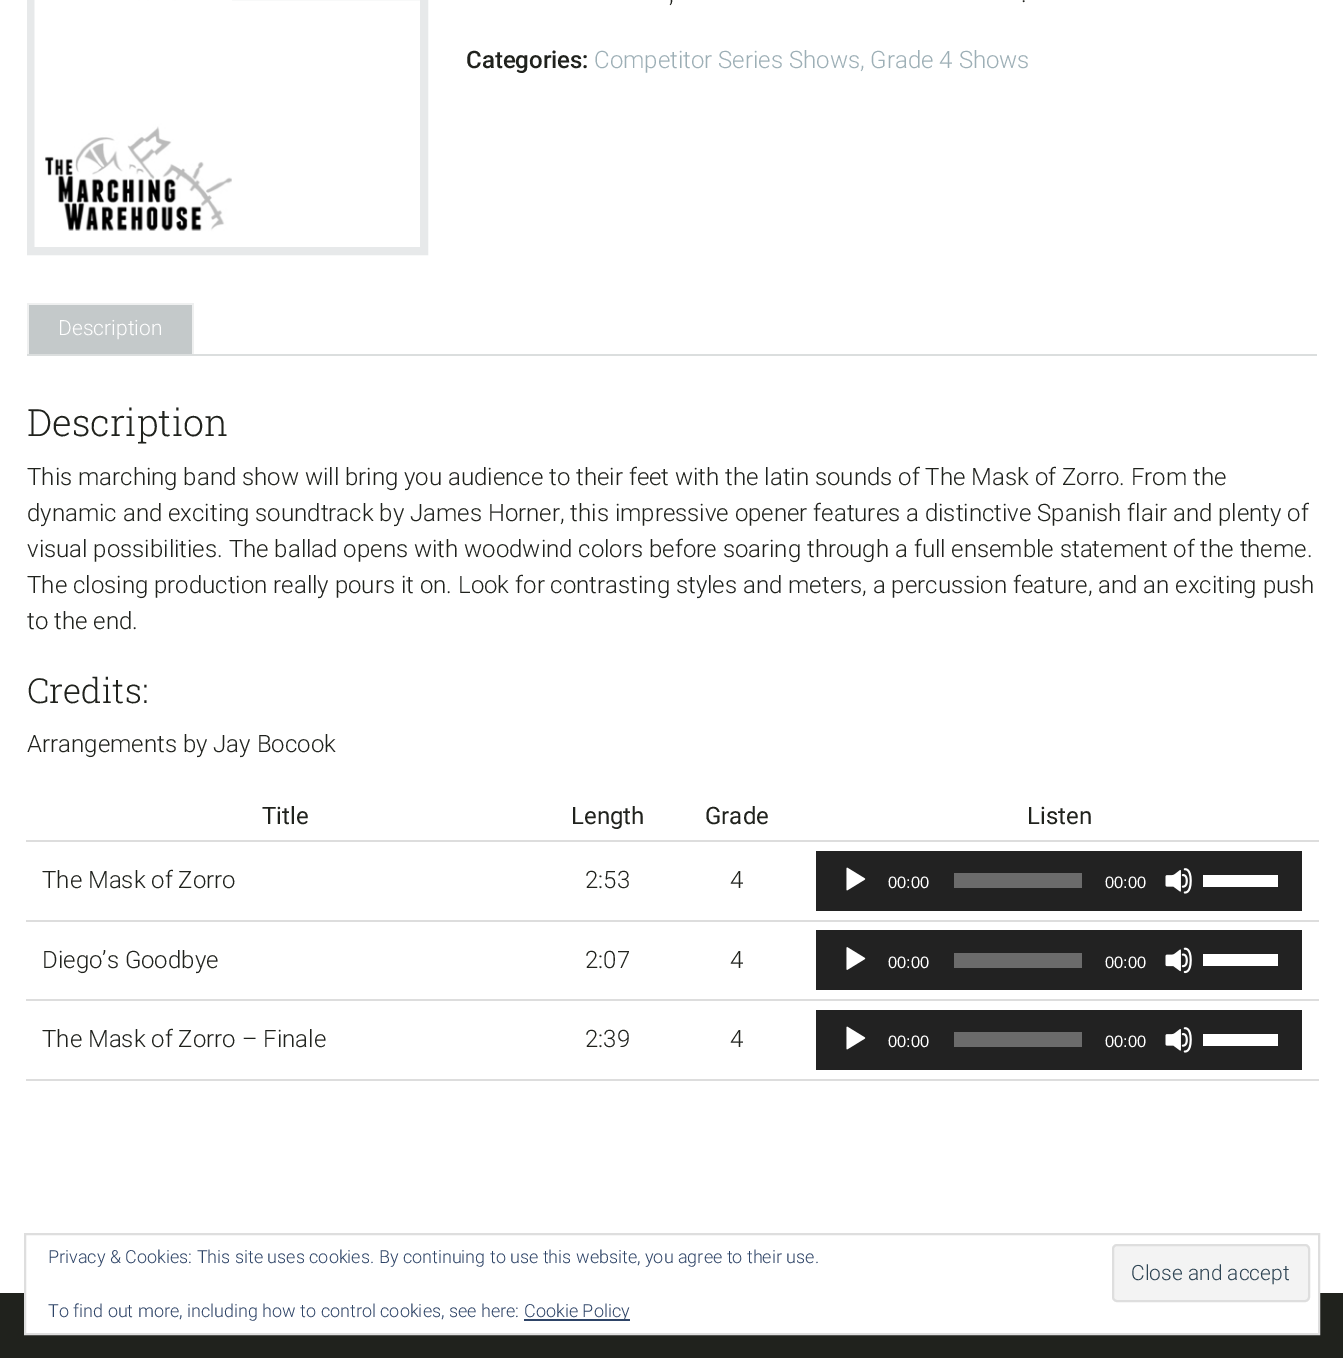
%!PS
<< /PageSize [1343 1358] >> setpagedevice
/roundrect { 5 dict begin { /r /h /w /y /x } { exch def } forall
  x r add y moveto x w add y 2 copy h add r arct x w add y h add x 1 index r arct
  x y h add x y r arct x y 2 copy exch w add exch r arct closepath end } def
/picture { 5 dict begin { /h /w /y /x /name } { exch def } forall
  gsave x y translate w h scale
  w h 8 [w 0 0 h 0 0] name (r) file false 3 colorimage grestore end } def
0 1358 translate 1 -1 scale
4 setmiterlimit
1 setgray
0 0 1343 1358 rectfill
0.906 0.914 0.918 setrgbcolor
8 setlinewidth
31 -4 393 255 rectstroke
(img1.rgb) 34 0 198 247 picture
/Roboto-Light [24 0 0 -24 0 0] selectfont
0.125 0.133 0.114 setrgbcolor
669 2 moveto (,) show
1021 2 moveto (.) show
/Roboto-Medium [24 0 0 -24 0 0] selectfont
466 68 moveto (Categories:) show
/Roboto-Light [24 0 0 -24 0 0] selectfont
0.616 0.686 0.714 setrgbcolor
594 68 moveto (Competitor Series Shows, Grade 4 Shows) show
0.859 0.871 0.871 setrgbcolor
27 354 1290 2 rectfill
0.937 0.941 0.941 setrgbcolor
27 303 167 2 rectfill
192 303 2 51 rectfill
27 303 2 51 rectfill
0.769 0.788 0.792 setrgbcolor
29 305 163 49 rectfill
/Roboto-Light [21 0 0 -21 0 0] selectfont
1 setgray
58 335 moveto (Description) show
/RobotoSlab-Light [37.5 0 0 -37.5 0 0] selectfont
0.125 0.133 0.114 setrgbcolor
27 436 moveto (Description) show
/Roboto-Light [24 0 0 -24 0 0] selectfont
27 485 moveto (This marching band show will bring you audience to their feet with the latin sounds of The Mask of Zorro. From the) show
27 521 moveto (dynamic and exciting soundtrack by James Horner, this impressive opener features a distinctive Spanish flair and plenty of) show
27 557 moveto (visual possibilities. The ballad opens with woodwind colors before soaring through a full ensemble statement of the theme.) show
27 593 moveto (The closing production really pours it on. Look for contrasting styles and meters, a percussion feature, and an exciting push) show
27 629 moveto (to the end.) show
/RobotoSlab-Light [34.5 0 0 -34.5 0 0] selectfont
27 703 moveto (Credits:) show
/Roboto-Light [24 0 0 -24 0 0] selectfont
27 752 moveto (Arrangements by Jay Bocook) show
0.867 setgray
26 1079 1293 2 rectfill
/Roboto-Regular [24 0 0 -24 0 0] selectfont
0.125 0.133 0.114 setrgbcolor
262 824 moveto (Title) show
571 824 moveto (Length) show
705 824 moveto (Grade) show
1027 824 moveto (Listen) show
/Roboto-Light [24 0 0 -24 0 0] selectfont
42 888 moveto (The Mask of Zorro) show
585 888 moveto (2:53) show
730 888 moveto (4) show
0.867 setgray
26 840 1293 2 rectfill
0.133 setgray
816 851 486 60 rectfill
(img2.rgb) 846 867 20 24 picture
/LiberationSans-Regular [16.5 0 0 -16.5 0 0] selectfont
1 setgray
888 888 moveto (00:00) show
0.42 setgray
954 873 128 15 rectfill
1 setgray
1105 888 moveto (00:00) show
(img3.rgb) 1165 868 27 26 picture
1203 875 75 12 rectfill
/Roboto-Light [24 0 0 -24 0 0] selectfont
0.125 0.133 0.114 setrgbcolor
42 968 moveto (Diego’s Goodbye) show
585 968 moveto (2:07) show
730 968 moveto (4) show
0.867 setgray
26 920 1293 2 rectfill
0.133 setgray
816 930 486 60 rectfill
(img4.rgb) 846 947 20 23 picture
/LiberationSans-Regular [16.5 0 0 -16.5 0 0] selectfont
1 setgray
888 968 moveto (00:00) show
0.42 setgray
954 953 128 15 rectfill
1 setgray
1105 968 moveto (00:00) show
(img5.rgb) 1165 947 27 27 picture
1203 954 75 12 rectfill
/Roboto-Light [24 0 0 -24 0 0] selectfont
0.125 0.133 0.114 setrgbcolor
42 1047 moveto (The Mask of Zorro – Finale) show
585 1047 moveto (2:39) show
730 1047 moveto (4) show
0.867 setgray
26 999 1293 2 rectfill
0.133 setgray
816 1010 486 60 rectfill
(img2.rgb) 846 1026 20 24 picture
/LiberationSans-Regular [16.5 0 0 -16.5 0 0] selectfont
1 setgray
888 1047 moveto (00:00) show
0.42 setgray
954 1032 128 15 rectfill
1 setgray
1105 1047 moveto (00:00) show
(img3.rgb) 1165 1027 27 26 picture
1203 1034 75 12 rectfill
0.125 0.133 0.114 setrgbcolor
0 1293 1343 65 rectfill
1 setgray
26 1293 1292 40 rectfill
0.871 setgray
2 setlinewidth
25 1234 1294 100 rectstroke
/Roboto-Light [18 0 0 -18 0 0] selectfont
0.18 0.267 0.404 setrgbcolor
48 1263 moveto (Privacy & Cookies: This site uses cookies. By continuing to use this website, you agree to their use.) show
0.953 setgray
1113 1245 196 56 4 roundrect gsave fill grestore
0.871 setgray
stroke
/Roboto-Light [21 0 0 -21 0 0] selectfont
0.18 0.267 0.325 setrgbcolor
1131 1280 moveto (Close and accept) show
/Roboto-Light [18 0 0 -18 0 0] selectfont
0.18 0.267 0.404 setrgbcolor
48 1317 moveto (To find out more, including how to control cookies, see here:) show
524 1319 106 2 rectfill
524 1317 moveto (Cookie Policy) show
showpage
